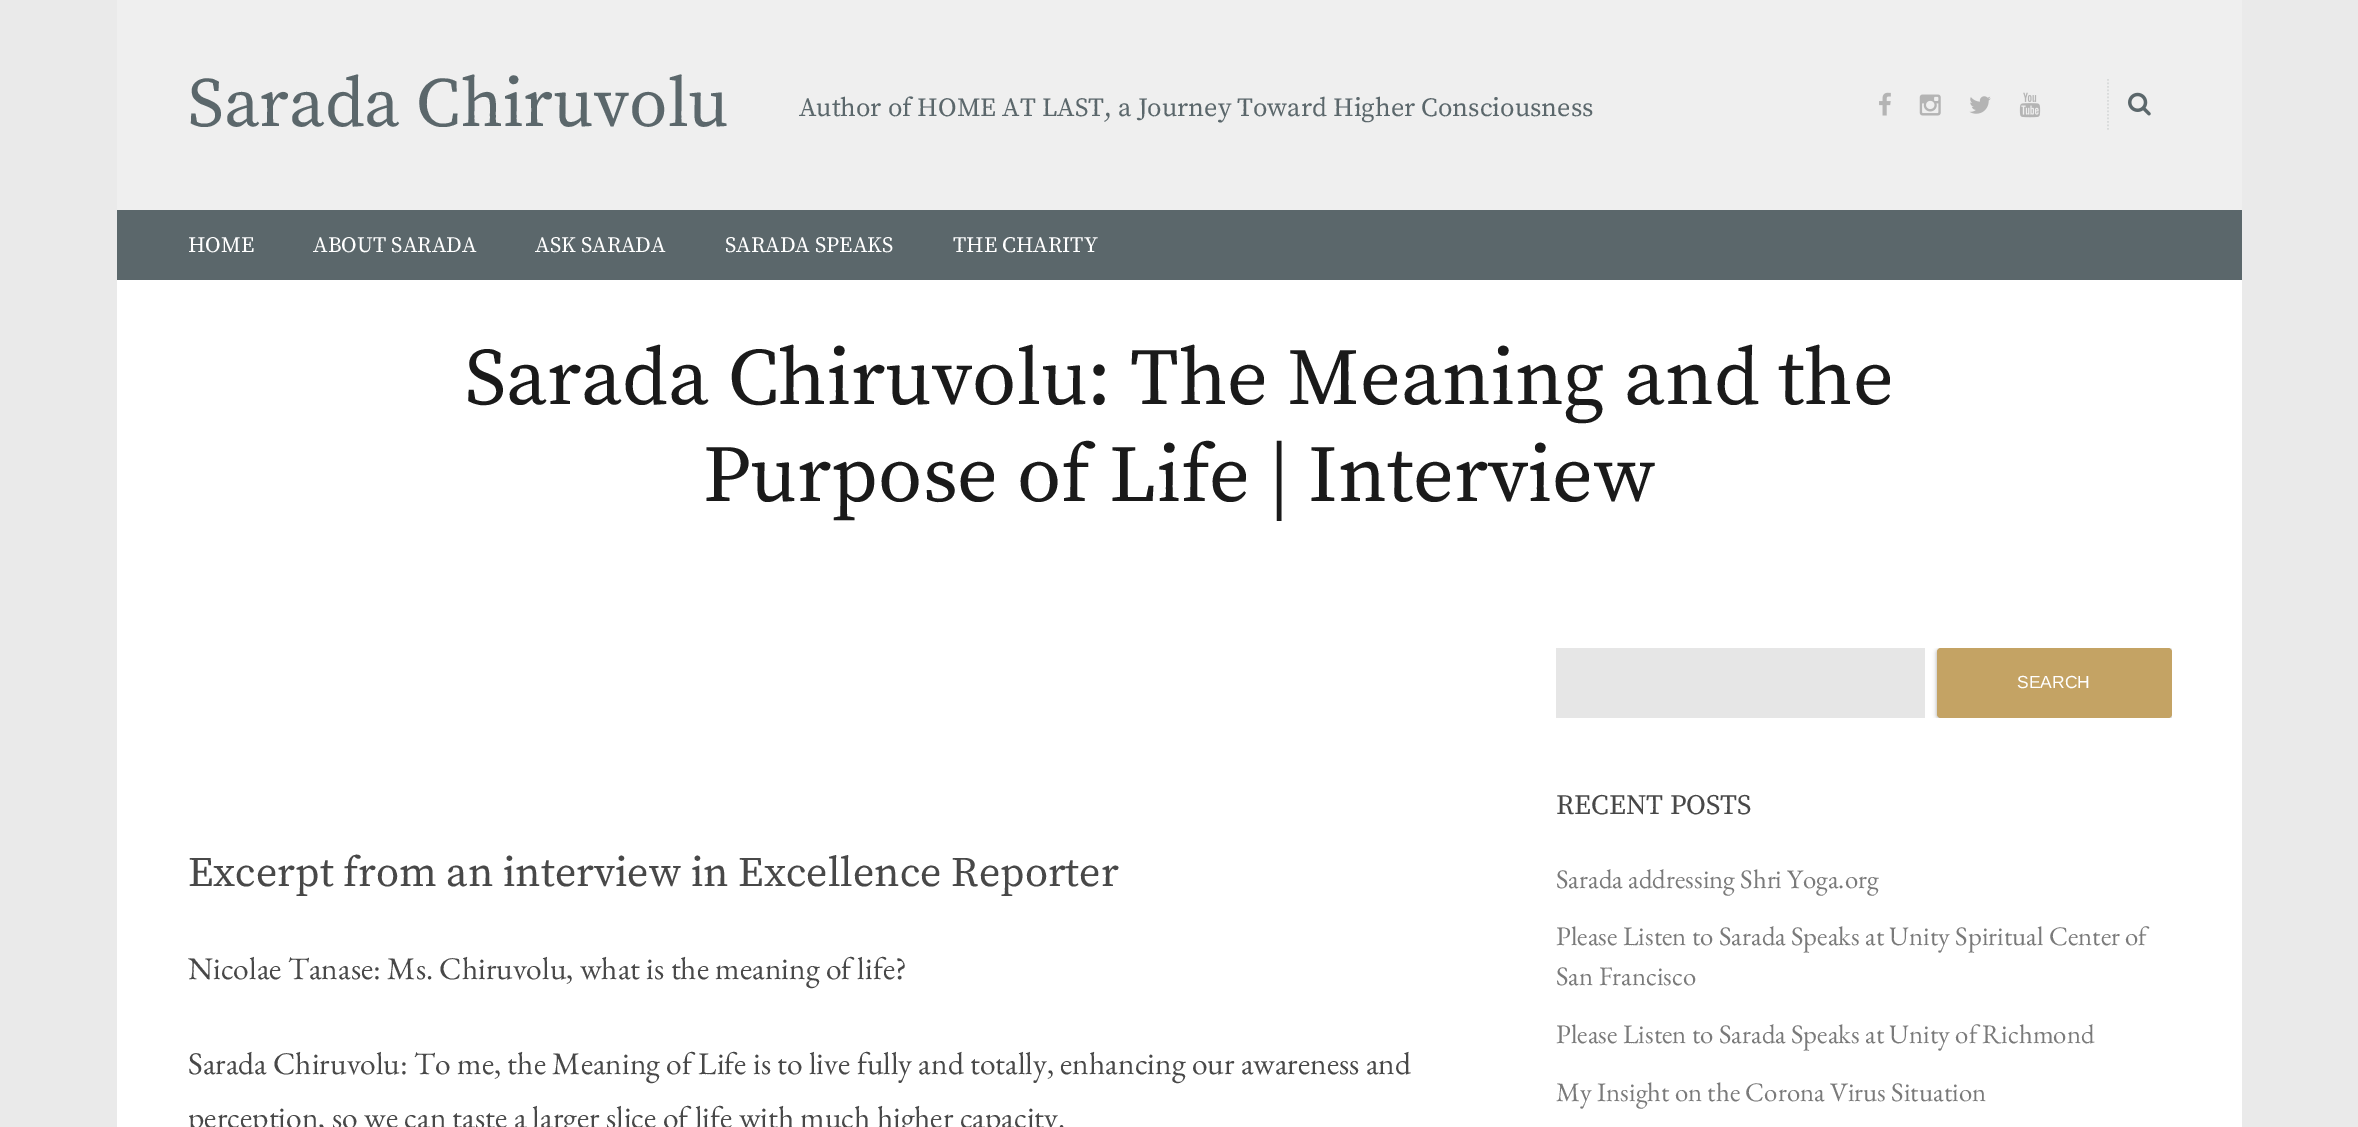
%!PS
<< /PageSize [2358 1127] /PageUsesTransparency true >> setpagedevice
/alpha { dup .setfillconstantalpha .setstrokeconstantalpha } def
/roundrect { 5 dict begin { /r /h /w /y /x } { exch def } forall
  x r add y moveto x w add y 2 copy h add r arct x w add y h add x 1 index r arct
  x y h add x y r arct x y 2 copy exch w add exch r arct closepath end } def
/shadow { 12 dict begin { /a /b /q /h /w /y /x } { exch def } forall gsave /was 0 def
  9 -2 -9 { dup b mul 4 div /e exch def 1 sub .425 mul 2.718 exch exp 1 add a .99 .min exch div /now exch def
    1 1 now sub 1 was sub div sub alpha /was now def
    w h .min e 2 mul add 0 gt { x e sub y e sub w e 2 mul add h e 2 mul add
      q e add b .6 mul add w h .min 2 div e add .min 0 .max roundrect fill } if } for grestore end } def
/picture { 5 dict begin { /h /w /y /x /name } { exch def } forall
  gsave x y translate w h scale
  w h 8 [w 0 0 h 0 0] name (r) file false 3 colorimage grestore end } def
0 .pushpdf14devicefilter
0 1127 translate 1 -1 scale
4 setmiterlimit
0.918 setgray
0 0 2358 1127 rectfill
0.937 setgray
117 0 2125 210 rectfill
/SourceSerifPro-Regular [70 0 0 -70 0 0] selectfont
0.357 0.404 0.42 setrgbcolor
188 126 moveto (Sarada Chiruvolu) show
/SourceSerifPro-Regular [26.25 0 0 -26.25 0 0] selectfont
799 116 moveto (Author of HOME AT LAST, a Journey Toward Higher Consciousness) show
(img1.rgb) 1879 92 12 24 picture
(img2.rgb) 1919 94 22 22 picture
(img3.rgb) 1969 96 22 18 picture
(img4.rgb) 2019 92 22 26 picture
0.851 0.859 0.859 setrgbcolor
1.8 setlinewidth
[1.75 1.75] 0 setdash
newpath 2108 79 moveto 2108 131 lineto stroke
(img5.rgb) 2128 92 23 24 picture
0.357 0.404 0.42 setrgbcolor
117 210 2125 70 rectfill
/SourceSerifPro-Regular [22 0 0 -22 0 0] selectfont
1 setgray
188 252 moveto (HOME) show
313 252 moveto (ABOUT SARADA) show
535 252 moveto (ASK SARADA) show
725 252 moveto (SARADA SPEAKS) show
953 252 moveto (THE CHARITY) show
117 280 2125 847 rectfill
/SourceSerifPro-Regular [80.5 0 0 -80.5 0 0] selectfont
0.102 setgray
465 404 moveto (Sarada Chiruvolu: The Meaning and the) show
703 501 moveto (Purpose of Life | Interview) show
/SourceSerifPro-Regular [42 0 0 -42 0 0] selectfont
0.282 setgray
188 886 moveto (Excerpt from an interview in Excellence Reporter) show
/EBGaramond-Regular [31.5 0 0 -31.5 0 0] selectfont
188 979 moveto (Nicolae Tanase: Ms. Chiruvolu, what is the meaning of life?) show
188 1074 moveto (Sarada Chiruvolu: To me, the Meaning of Life is to live fully and totally, enhancing our awareness and) show
188 1128 moveto (perception, so we can taste a larger slice of life with much higher capacity.) show
0.902 setgray
1556 648 369 70 rectfill
gsave
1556 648 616 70 rectclip
0 setgray
1937 649 235 70 4 2 0.24 shadow
1937 649 235 70 4 2.5 0.12 shadow
grestore
0.769 0.639 0.392 setrgbcolor
1937 648 235 70 4 roundrect fill
/LiberationSans-Regular [17.5 0 0 -17.5 0 0] selectfont
1 setgray
2017 688 moveto (SEARCH) show
/SourceSerifPro-Regular [28 0 0 -28 0 0] selectfont
0.282 setgray
1556 814 moveto (RECENT POSTS) show
/EBGaramond-Regular [26.75 0 0 -26.75 0 0] selectfont
0.478 setgray
1556 888 moveto (Sarada addressing Shri Yoga.org) show
1556 945 moveto (Please Listen to Sarada Speaks at Unity Spiritual Center of) show
1556 985 moveto (San Francisco) show
1556 1043 moveto (Please Listen to Sarada Speaks at Unity of Richmond) show
1556 1101 moveto (My Insight on the Corona Virus Situation) show
.poppdf14devicefilter showpage
